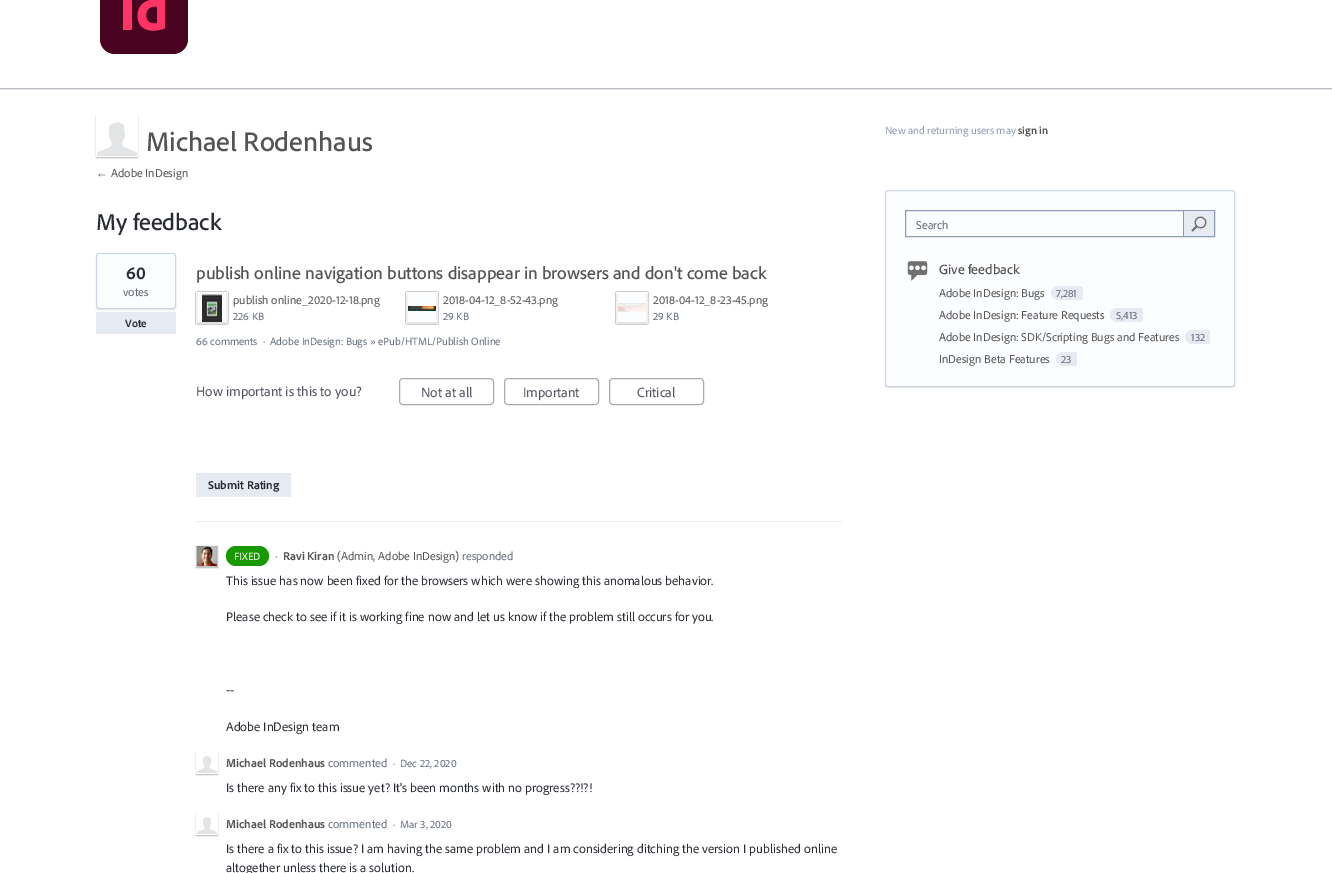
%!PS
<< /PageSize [1332 873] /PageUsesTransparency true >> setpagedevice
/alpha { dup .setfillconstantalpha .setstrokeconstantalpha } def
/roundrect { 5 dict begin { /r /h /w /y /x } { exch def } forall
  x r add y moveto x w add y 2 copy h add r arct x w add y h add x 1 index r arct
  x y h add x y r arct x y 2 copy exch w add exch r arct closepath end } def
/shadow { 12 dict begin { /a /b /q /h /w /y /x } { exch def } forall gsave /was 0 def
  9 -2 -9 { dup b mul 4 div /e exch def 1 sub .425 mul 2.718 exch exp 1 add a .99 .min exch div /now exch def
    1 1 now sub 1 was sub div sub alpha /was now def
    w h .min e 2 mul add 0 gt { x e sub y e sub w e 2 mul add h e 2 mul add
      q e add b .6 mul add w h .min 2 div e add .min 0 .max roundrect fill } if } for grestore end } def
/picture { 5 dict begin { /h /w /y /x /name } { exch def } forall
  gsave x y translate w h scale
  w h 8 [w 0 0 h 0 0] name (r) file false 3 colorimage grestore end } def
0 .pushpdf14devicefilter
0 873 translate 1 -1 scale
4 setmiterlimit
1 setgray
0 0 1332 873 rectfill
0.749 setgray
0 88 1332 1 rectfill
(img1.rgb) 100 0 88 54 picture
0.89 0.91 0.949 setrgbcolor
0 89 1332 1 rectfill
gsave
newpath 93 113 moveto 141 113 lineto 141 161 lineto 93 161 lineto closepath 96 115 moveto 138 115 lineto 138 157 lineto 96 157 lineto closepath eoclip newpath
0 setgray
96 116 42 42 0 0.5 0.25 shadow
grestore
(img2.rgb) 97 122 40 34 picture
/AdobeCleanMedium-Medium [28 0 0 -28 0 0] selectfont
0.329 setgray
146 151 moveto (Michael Rodenhaus) show
/LiberationSans-Regular [12 0 0 -12 0 0] selectfont
96 177 moveto (←) show
/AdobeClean-Regular [12 0 0 -12 0 0] selectfont
111 177 moveto (Adobe InDesign) show
/AdobeCleanMedium-Medium [24 0 0 -24 0 0] selectfont
0.161 0.173 0.2 setrgbcolor
96 230 moveto (My feedback) show
0 setgray
96 254 80 56 3 0.5 0.1 shadow
0.988 0.992 1 setrgbcolor
96.5 253.5 79 55 2.5 roundrect gsave fill grestore
0.812 0.843 0.902 setrgbcolor
stroke
/AdobeClean-Bold [18 0 0 -18 0 0] selectfont
0.161 0.173 0.2 setrgbcolor
126 279 moveto (60) show
/AdobeClean-Regular [12 0 0 -12 0 0] selectfont
0.38 0.412 0.451 setrgbcolor
123 296 moveto (votes) show
0.902 0.918 0.949 setrgbcolor
96 312 80 22 rectfill
/AdobeClean-Bold [11 0 0 -11 0 0] selectfont
0.161 0.173 0.2 setrgbcolor
125 327 moveto (Vote) show
/AdobeCleanMedium-Medium [18 0 0 -18 0 0] selectfont
0.329 setgray
196 279 moveto (publish online navigation buttons disappear in browsers and don't come back) show
0 setgray
196 292 32 32 1 0.5 0.75 shadow
0.988 0.992 1 setrgbcolor
196 292 32 32 1 roundrect fill
(img3.rgb) 202 294 20 28 picture
0.996 setgray
newpath 197 292 moveto 196.5 292.5 lineto 198 294 lineto 226 294 lineto 227.5 292.5 lineto 227 292 lineto closepath fill
0.945 setgray
newpath 228 323 moveto 228 319.5 228.5 293 227.5 292.5 curveto 226 294 lineto 226 322 lineto 227.5 323.5 lineto closepath fill
0.886 setgray
newpath 197 324 moveto 200.5 324 227 324.5 227.5 323.5 curveto 226 322 lineto 198 322 lineto 196.5 323.5 lineto closepath fill
0.945 setgray
newpath 198 294 moveto 196.5 292.5 lineto 196 293 lineto 196 323 lineto 196.5 323.5 lineto 198 322 lineto closepath fill
/AdobeClean-Regular [12 0 0 -12 0 0] selectfont
0.329 setgray
233 304 moveto (publish online_2020-12-18.png) show
/AdobeClean-Regular [11 0 0 -11 0 0] selectfont
0.38 0.412 0.451 setrgbcolor
233 320 moveto (226 KB) show
0 setgray
406 292 32 32 1 0.5 0.75 shadow
0.988 0.992 1 setrgbcolor
406 292 32 32 1 roundrect fill
(img4.rgb) 408 306 28 5 picture
0.996 setgray
newpath 407 292 moveto 406.5 292.5 lineto 408 294 lineto 436 294 lineto 437.5 292.5 lineto 437 292 lineto closepath fill
0.945 setgray
newpath 438 323 moveto 438 319.5 438.5 293 437.5 292.5 curveto 436 294 lineto 436 322 lineto 437.5 323.5 lineto closepath fill
0.886 setgray
newpath 407 324 moveto 410.5 324 437 324.5 437.5 323.5 curveto 436 322 lineto 408 322 lineto 406.5 323.5 lineto closepath fill
0.945 setgray
newpath 408 294 moveto 406.5 292.5 lineto 406 293 lineto 406 323 lineto 406.5 323.5 lineto 408 322 lineto closepath fill
/AdobeClean-Regular [12 0 0 -12 0 0] selectfont
0.329 setgray
443 304 moveto (2018-04-12_8-52-43.png) show
/AdobeClean-Regular [11 0 0 -11 0 0] selectfont
0.38 0.412 0.451 setrgbcolor
443 320 moveto (29 KB) show
0 setgray
616 292 32 32 1 0.5 0.75 shadow
0.988 0.992 1 setrgbcolor
616 292 32 32 1 roundrect fill
(img5.rgb) 618 303 28 9 picture
0.996 setgray
newpath 617 292 moveto 616.5 292.5 lineto 618 294 lineto 646 294 lineto 647.5 292.5 lineto 647 292 lineto closepath fill
0.945 setgray
newpath 648 323 moveto 648 319.5 648.5 293 647.5 292.5 curveto 646 294 lineto 646 322 lineto 647.5 323.5 lineto closepath fill
0.886 setgray
newpath 617 324 moveto 620.5 324 647 324.5 647.5 323.5 curveto 646 322 lineto 618 322 lineto 616.5 323.5 lineto closepath fill
0.945 setgray
newpath 618 294 moveto 616.5 292.5 lineto 616 293 lineto 616 323 lineto 616.5 323.5 lineto 618 322 lineto closepath fill
/AdobeClean-Regular [12 0 0 -12 0 0] selectfont
0.329 setgray
653 304 moveto (2018-04-12_8-23-45.png) show
/AdobeClean-Regular [11 0 0 -11 0 0] selectfont
0.38 0.412 0.451 setrgbcolor
653 320 moveto (29 KB) show
0.4 0.435 0.502 setrgbcolor
196 345 moveto (66 comments) show
0.38 0.412 0.451 setrgbcolor
263 345 moveto (·) show
0.4 0.435 0.502 setrgbcolor
270 345 moveto (Adobe InDesign: Bugs) show
0.38 0.412 0.451 setrgbcolor
370 345 moveto (») show
0.4 0.435 0.502 setrgbcolor
378 345 moveto (ePub/HTML/Publish Online) show
0.922 0.922 0.945 setrgbcolor
196 521 646 1 rectfill
/AdobeClean-Regular [14 0 0 -14 0 0] selectfont
0.322 0.322 0.376 setrgbcolor
196 396 moveto (How important is this to you?) show
0.667 0.667 0.698 setrgbcolor
399.5 378.5 94 26 3.5 roundrect stroke
0.322 0.322 0.376 setrgbcolor
421 397 moveto (Not at all) show
0.667 0.667 0.698 setrgbcolor
504.5 378.5 94 26 3.5 roundrect stroke
0.322 0.322 0.376 setrgbcolor
523 397 moveto (Important) show
0.667 0.667 0.698 setrgbcolor
609.5 378.5 94 26 3.5 roundrect stroke
0.322 0.322 0.376 setrgbcolor
637 397 moveto (Critical) show
0.902 0.918 0.949 setrgbcolor
196 473 95 24 rectfill
/AdobeClean-Bold [12 0 0 -12 0 0] selectfont
0.161 0.173 0.2 setrgbcolor
208 489 moveto (Submit Rating) show
0.098 0.6 0 setrgbcolor
226 546 43 20 10 roundrect fill
/AdobeClean-Regular [11 0 0 -11 0 0] selectfont
1 setgray
234 560 moveto (FIXED) show
/AdobeClean-Regular [12 0 0 -12 0 0] selectfont
0.38 0.412 0.451 setrgbcolor
275 560 moveto (·) show
0 setgray
196 546 22 22 0 0.5 0.25 shadow
(img6.rgb) 197 546 20 20 picture
/AdobeClean-Bold [12 0 0 -12 0 0] selectfont
0.329 setgray
283 560 moveto (Ravi Kiran) show
/AdobeClean-Regular [12 0 0 -12 0 0] selectfont
337 560 moveto (\(Admin, Adobe InDesign\)) show
0.4 0.435 0.502 setrgbcolor
462 560 moveto (responded) show
/AdobeClean-Regular [13 0 0 -13 0 0] selectfont
0.161 0.173 0.2 setrgbcolor
226 585 moveto (This issue has now been fixed for the browsers which were showing this anomalous behavior.) show
226 621 moveto (Please check to see if it is working fine now and let us know if the problem still occurs for you.) show
226 694 moveto (--) show
226 731 moveto (Adobe InDesign team) show
gsave
newpath 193 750 moveto 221 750 lineto 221 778 lineto 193 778 lineto closepath 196 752 moveto 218 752 lineto 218 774 lineto 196 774 lineto closepath eoclip newpath
0 setgray
196 753 22 22 0 0.5 0.25 shadow
grestore
(img7.rgb) 197 756 20 17 picture
/AdobeClean-Bold [12 0 0 -12 0 0] selectfont
0.329 setgray
226 767 moveto (Michael Rodenhaus) show
/AdobeClean-Regular [12 0 0 -12 0 0] selectfont
0.4 0.435 0.502 setrgbcolor
328 767 moveto (commented) show
/AdobeClean-Regular [11 0 0 -11 0 0] selectfont
0.38 0.412 0.451 setrgbcolor
393 767 moveto (·) show
0.4 0.435 0.502 setrgbcolor
400 767 moveto (Dec 22, 2020) show
/AdobeClean-Regular [13 0 0 -13 0 0] selectfont
0.161 0.173 0.2 setrgbcolor
226 792 moveto (Is there any fix to this issue yet? It's been months with no progress??!?!) show
gsave
newpath 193 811 moveto 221 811 lineto 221 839 lineto 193 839 lineto closepath 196 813 moveto 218 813 lineto 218 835 lineto 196 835 lineto closepath eoclip newpath
0 setgray
196 814 22 22 0 0.5 0.25 shadow
grestore
(img7.rgb) 197 817 20 17 picture
/AdobeClean-Bold [12 0 0 -12 0 0] selectfont
0.329 setgray
226 828 moveto (Michael Rodenhaus) show
/AdobeClean-Regular [12 0 0 -12 0 0] selectfont
0.4 0.435 0.502 setrgbcolor
328 828 moveto (commented) show
/AdobeClean-Regular [11 0 0 -11 0 0] selectfont
0.38 0.412 0.451 setrgbcolor
393 828 moveto (·) show
0.4 0.435 0.502 setrgbcolor
400 828 moveto (Mar 3, 2020) show
/AdobeClean-Regular [13 0 0 -13 0 0] selectfont
0.161 0.173 0.2 setrgbcolor
226 853 moveto (Is there a fix to this issue? I am having the same problem and I am considering ditching the version I published online) show
226 872 moveto (altogether unless there is a solution.) show
/AdobeClean-Regular [11 0 0 -11 0 0] selectfont
0.561 0.608 0.702 setrgbcolor
885 134 moveto (New and returning users may) show
/AdobeClean-Bold [11 0 0 -11 0 0] selectfont
0.329 setgray
1018 134 moveto (sign in) show
0 setgray
885 191 350 197 3 0.5 0.1 shadow
0.988 0.992 1 setrgbcolor
885.5 190.5 349 196 2.5 roundrect gsave fill grestore
0.812 0.843 0.902 setrgbcolor
stroke
0.561 0.608 0.702 setrgbcolor
905.5 210.5 309 26 rectstroke
/AdobeClean-Regular [12 0 0 -12 0 0] selectfont
0.38 0.412 0.451 setrgbcolor
916 229 moveto (Search) show
0.902 0.918 0.949 setrgbcolor
1184 211 30 25 rectfill
0.561 0.608 0.702 setrgbcolor
1183 211 1 25 rectfill
(img8.rgb) 1191 216 16 16 picture
(img9.rgb) 907 261 21 20 picture
/AdobeCleanMedium-Medium [14 0 0 -14 0 0] selectfont
0.329 setgray
939 274 moveto (Give feedback) show
/AdobeClean-Regular [12 0 0 -12 0 0] selectfont
939 297 moveto (Adobe InDesign: Bugs) show
0.906 0.918 0.949 setrgbcolor
newpath 1058 286 moveto 1077 286 lineto 1077 300 lineto 1058 300 lineto 1054 300 1051 297 1051 293 curveto 1051 289 1054 286 1058 286 curveto closepath fill
/AdobeClean-Regular [11 0 0 -11 0 0] selectfont
0.38 0.412 0.451 setrgbcolor
1056 297 moveto (7,281) show
0.906 0.918 0.949 setrgbcolor
newpath 1077 286 moveto 1080 286 lineto 1081.5 286 1083 287.5 1083 289 curveto 1083 297 lineto 1083 298.5 1081.5 300 1080 300 curveto 1077 300 lineto closepath fill
/AdobeClean-Regular [12 0 0 -12 0 0] selectfont
0.329 setgray
939 319 moveto (Adobe InDesign: Feature Requests) show
0.906 0.918 0.949 setrgbcolor
newpath 1117 308 moveto 1137 308 lineto 1137 322 lineto 1117 322 lineto 1113 322 1110 319 1110 315 curveto 1110 311 1113 308 1117 308 curveto closepath fill
/AdobeClean-Regular [11 0 0 -11 0 0] selectfont
0.38 0.412 0.451 setrgbcolor
1116 319 moveto (5,413) show
0.906 0.918 0.949 setrgbcolor
newpath 1137 308 moveto 1140 308 lineto 1141.5 308 1143 309.5 1143 311 curveto 1143 319 lineto 1143 320.5 1141.5 322 1140 322 curveto 1137 322 lineto closepath fill
/AdobeClean-Regular [12 0 0 -12 0 0] selectfont
0.329 setgray
939 341 moveto (Adobe InDesign: SDK/Scripting Bugs and Features) show
0.906 0.918 0.949 setrgbcolor
newpath 1192 330 moveto 1205 330 lineto 1205 344 lineto 1192 344 lineto 1188 344 1185 341 1185 337 curveto 1185 333 1188 330 1192 330 curveto closepath fill
/AdobeClean-Regular [11 0 0 -11 0 0] selectfont
0.38 0.412 0.451 setrgbcolor
1191 341 moveto (132) show
0.906 0.918 0.949 setrgbcolor
newpath 1205 330 moveto 1207.5 330 lineto 1209 330 1210 331 1210 332.5 curveto 1210 341.5 lineto 1210 343 1209 344 1207.5 344 curveto 1205 344 lineto closepath fill
/AdobeClean-Regular [12 0 0 -12 0 0] selectfont
0.329 setgray
939 363 moveto (InDesign Beta Features) show
0.906 0.918 0.949 setrgbcolor
newpath 1063 352 moveto 1072 352 lineto 1072 366 lineto 1063 366 lineto 1059 366 1056 363 1056 359 curveto 1056 355 1059 352 1063 352 curveto closepath fill
/AdobeClean-Regular [11 0 0 -11 0 0] selectfont
0.38 0.412 0.451 setrgbcolor
1061 363 moveto (23) show
0.906 0.918 0.949 setrgbcolor
newpath 1072 352 moveto 1074.5 352 lineto 1076 352 1077 353 1077 354.5 curveto 1077 363.5 lineto 1077 365 1076 366 1074.5 366 curveto 1072 366 lineto closepath fill
.poppdf14devicefilter showpage
